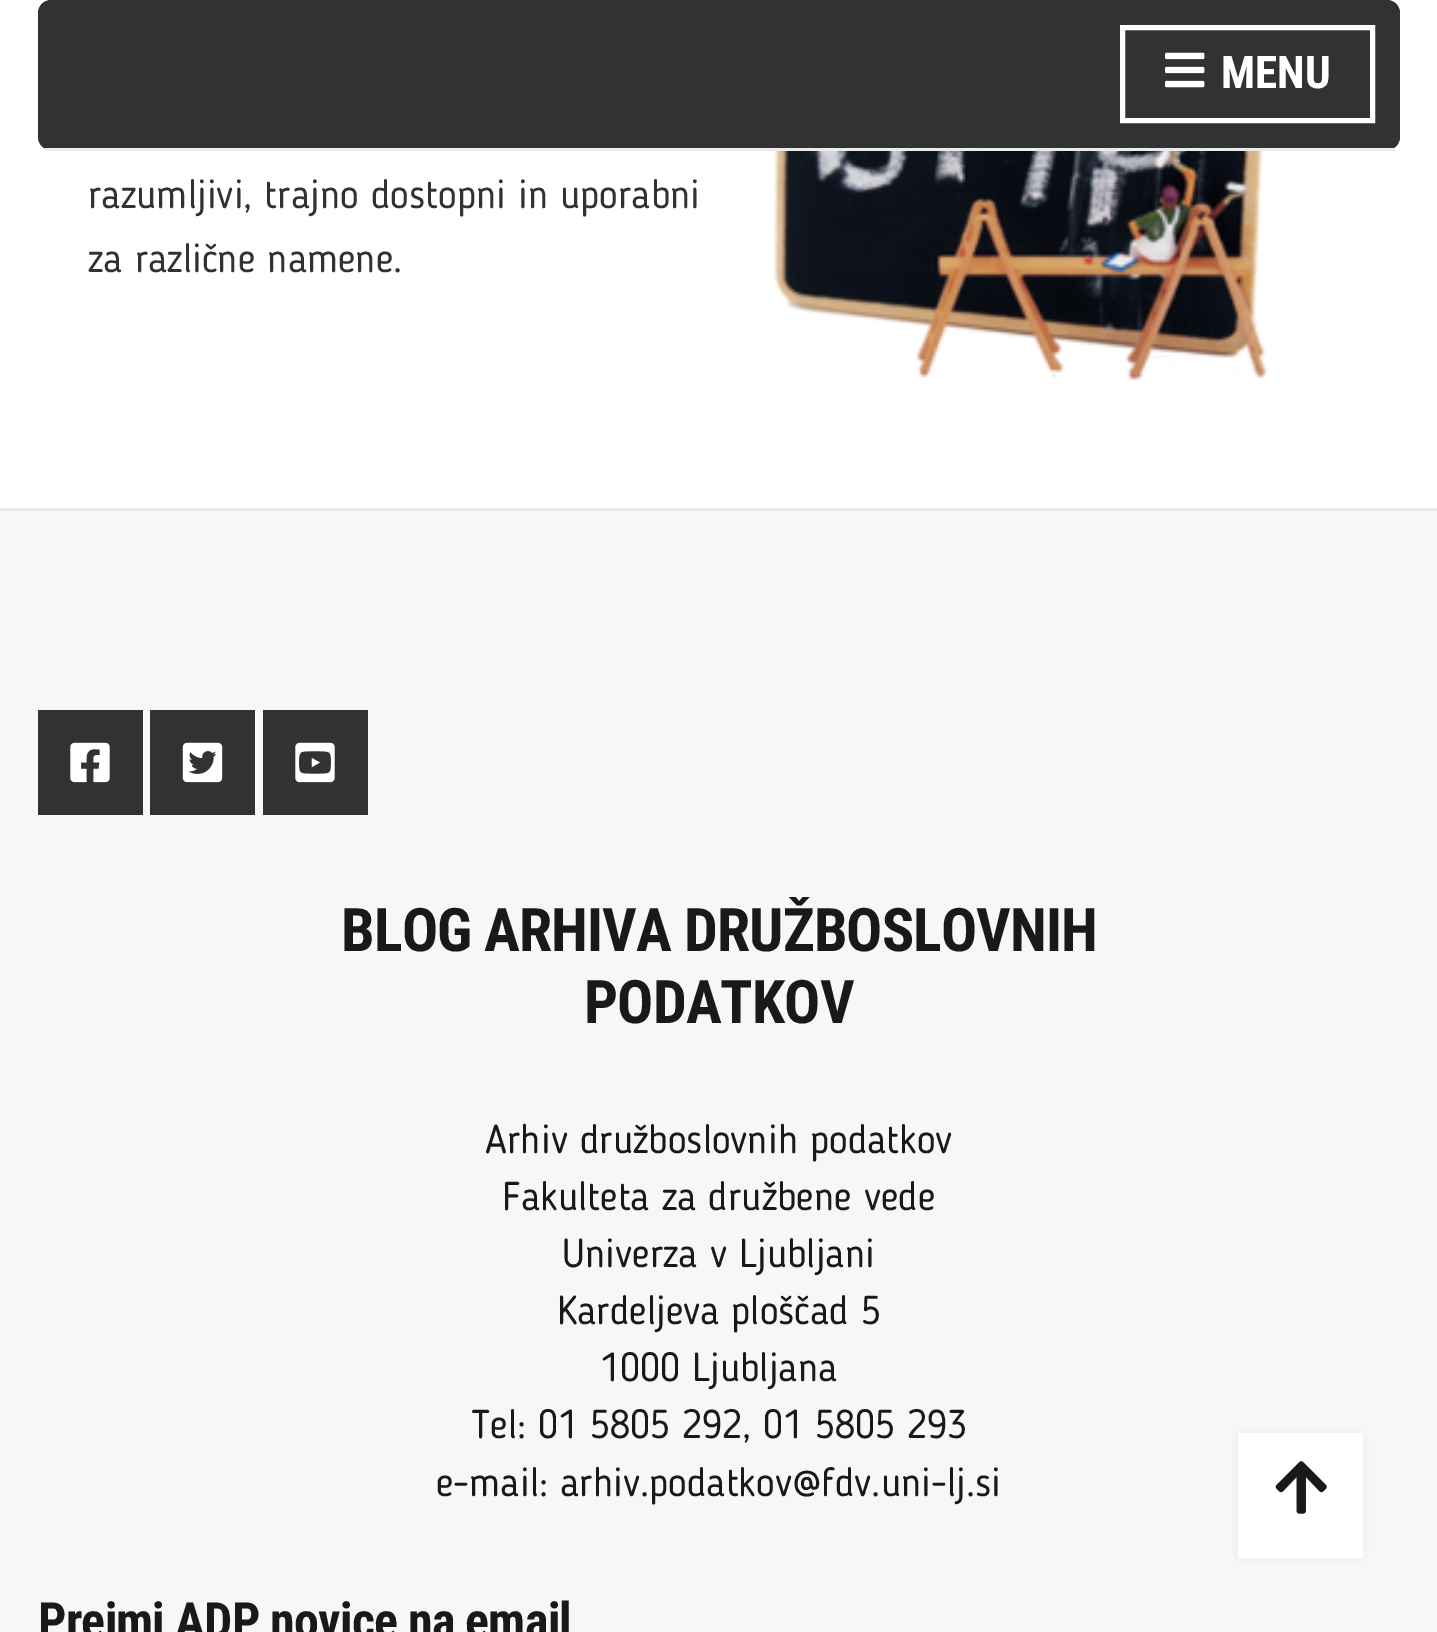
%!PS
<< /PageSize [1437 1632] /PageUsesTransparency true >> setpagedevice
/alpha { dup .setfillconstantalpha .setstrokeconstantalpha } def
/roundrect { 5 dict begin { /r /h /w /y /x } { exch def } forall
  x r add y moveto x w add y 2 copy h add r arct x w add y h add x 1 index r arct
  x y h add x y r arct x y 2 copy exch w add exch r arct closepath end } def
/shadow { 12 dict begin { /a /b /q /h /w /y /x } { exch def } forall gsave /was 0 def
  9 -2 -9 { dup b mul 4 div /e exch def 1 sub .425 mul 2.718 exch exp 1 add a .99 .min exch div /now exch def
    1 1 now sub 1 was sub div sub alpha /was now def
    w h .min e 2 mul add 0 gt { x e sub y e sub w e 2 mul add h e 2 mul add
      q e add b .6 mul add w h .min 2 div e add .min 0 .max roundrect fill } if } for grestore end } def
/picture { 5 dict begin { /h /w /y /x /name } { exch def } forall
  gsave x y translate w h scale
  w h 8 [w 0 0 h 0 0] name (r) file false 3 colorimage grestore end } def
0 .pushpdf14devicefilter
0 1632 translate 1 -1 scale
4 setmiterlimit
1 setgray
0 0 1437 1632 rectfill
0.196 setgray
38 0 1362 150 13 roundrect fill
0.922 setgray
45 148 1350 3 rectfill
1 setgray
5 setlinewidth
1122.5 27.5 250 93 rectstroke
(img1.rgb) 1165 52 40 36 picture
/RobotoCondensed-Bold [45 0 0 -45 0 0] selectfont
1221 88 moveto (MENU) show
/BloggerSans-Regular [40 0 0 -40 0 0] selectfont
0.196 setgray
88 208 moveto (razumljivi, trajno dostopni in uporabni) show
88 272 moveto (za različne namene.) show
(img2.rgb) 774 151 494 230 picture
0.969 setgray
0 511 1437 1121 rectfill
0.922 setgray
0 508 1437 3 rectfill
0.196 setgray
38 710 105 105 rectfill
(img3.rgb) 70 742 40 41 picture
150 710 105 105 rectfill
(img4.rgb) 182 742 41 41 picture
263 710 105 105 rectfill
(img5.rgb) 295 742 40 41 picture
/RobotoCondensed-Bold [60 0 0 -60 0 0] selectfont
0.098 setgray
341 951 moveto -0.9 0 (BLOG ARHIVA DRUŽBOSLOVNIH) ashow
584 1023 moveto -0.9 0 (PODATKOV) ashow
/BloggerSans-Regular [40 0 0 -40 0 0] selectfont
485 1153 moveto (Arhiv družboslovnih podatkov) show
502 1210 moveto (Fakulteta za družbene vede) show
562 1267 moveto (Univerza v Ljubljani) show
557 1324 moveto (Kardeljeva ploščad 5) show
600 1381 moveto (1000 Ljubljana) show
471 1438 moveto (Tel: 01 5805 292, 01 5805 293) show
436 1496 moveto (e-mail: arhiv.podatkov@fdv.uni-lj.si) show
/RobotoCondensed-Bold [50 0 0 -50 0 0] selectfont
38 1638 moveto -0.75 0 (Prejmi ADP novice na email) ashow
0.922 setgray
1238 1433 125 125 0 6 1 shadow
1 setgray
1238 1433 125 125 rectfill
(img6.rgb) 1275 1461 52 53 picture
.poppdf14devicefilter showpage
